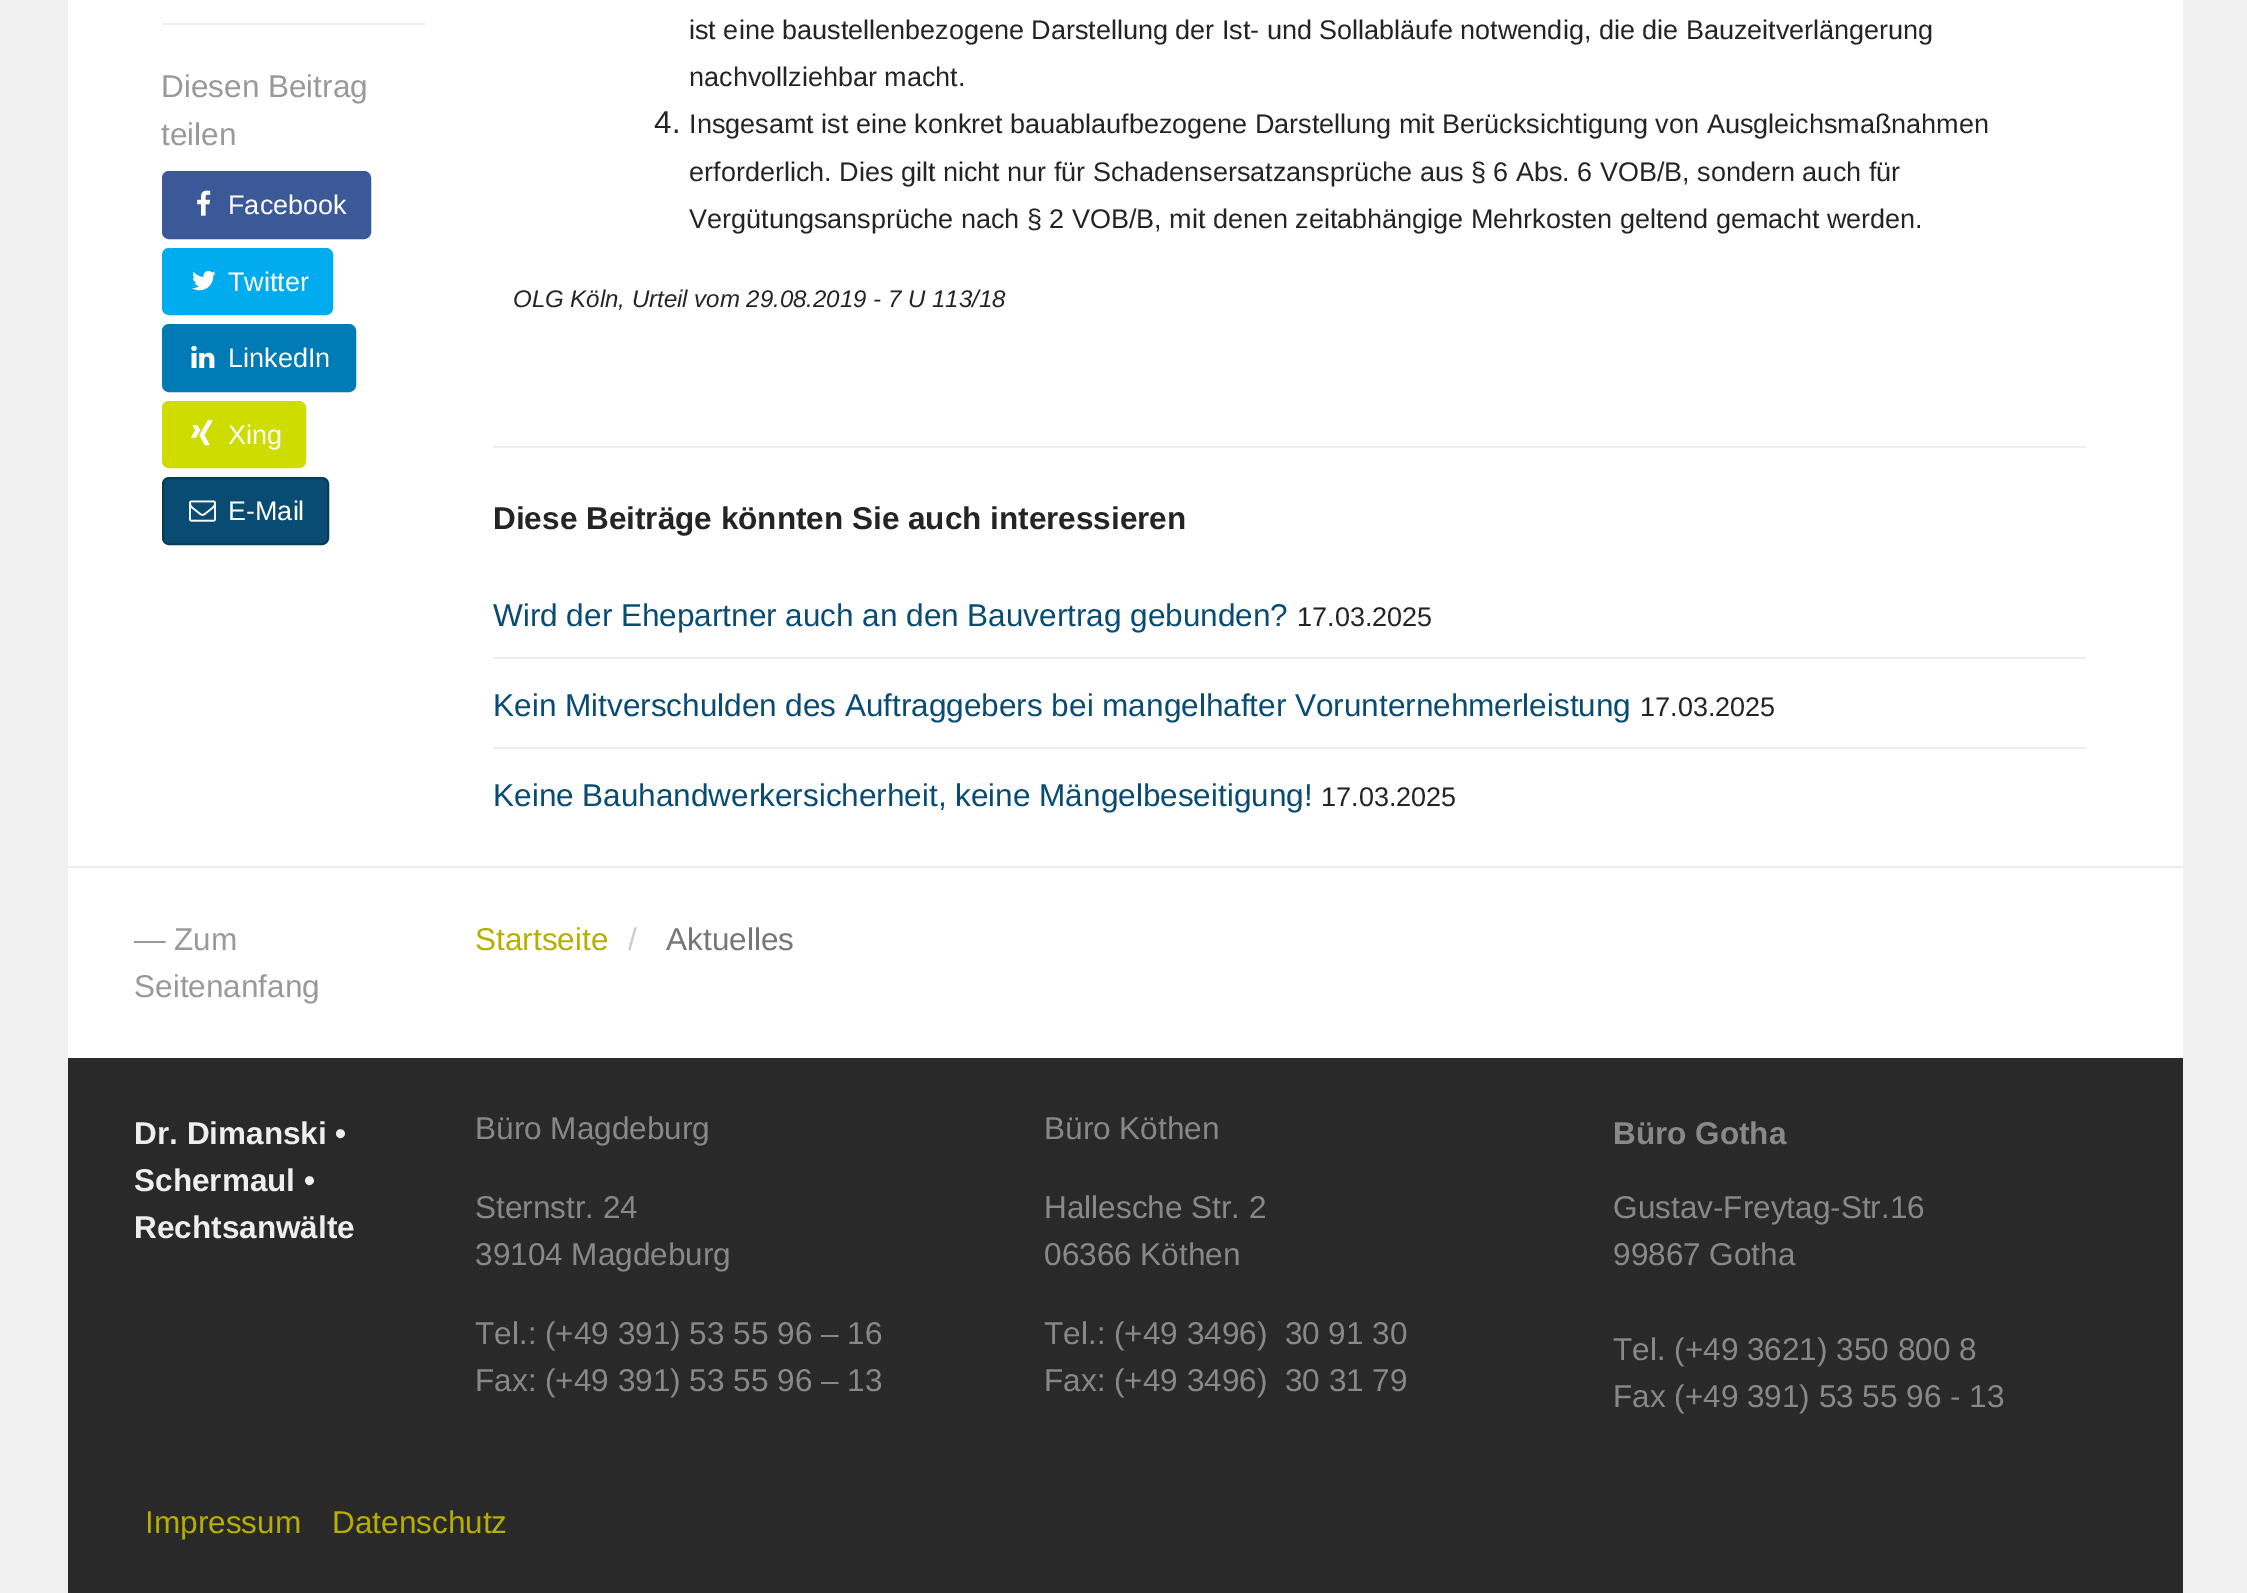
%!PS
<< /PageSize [2247 1593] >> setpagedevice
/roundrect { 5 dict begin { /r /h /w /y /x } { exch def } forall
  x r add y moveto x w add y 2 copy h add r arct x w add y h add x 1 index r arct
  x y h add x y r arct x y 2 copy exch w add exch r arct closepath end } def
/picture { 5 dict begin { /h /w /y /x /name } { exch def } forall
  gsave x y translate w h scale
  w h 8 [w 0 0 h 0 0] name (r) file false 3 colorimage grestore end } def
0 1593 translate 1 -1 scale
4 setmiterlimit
0.941 setgray
0 0 2247 1593 rectfill
1 setgray
68 0 2115 1058 rectfill
0.933 setgray
68 866 2115 2 rectfill
162 23 263 2 rectfill
/LiberationSans-Regular [31.5 0 0 -31.5 0 0] selectfont
0.6 setgray
161 97 moveto (Diesen Beitrag) show
161 145 moveto (teilen) show
0.231 0.349 0.596 setrgbcolor
163 172 207 66 6 roundrect gsave fill grestore
2 setlinewidth
stroke
(img1.rgb) 197 190 14 26 picture
/LiberationSans-Regular [27 0 0 -27 0 0] selectfont
1 setgray
228 214 moveto (Facebook) show
0 0.675 0.933 setrgbcolor
163 249 169 65 6 roundrect gsave fill grestore
stroke
(img2.rgb) 192 271 24 20 picture
1 setgray
228 291 moveto (Twitter) show
0 0.482 0.714 setrgbcolor
163 325 192 66 6 roundrect gsave fill grestore
stroke
(img3.rgb) 191 345 24 23 picture
1 setgray
228 367 moveto (LinkedIn) show
0.812 0.863 0 setrgbcolor
163 402 142 65 6 roundrect gsave fill grestore
stroke
(img4.rgb) 191 420 22 26 picture
1 setgray
228 444 moveto (Xing) show
0.031 0.298 0.451 setrgbcolor
163 478 165 66 6 roundrect gsave fill grestore
0.024 0.235 0.357 setrgbcolor
stroke
(img5.rgb) 189 500 27 22 picture
1 setgray
228 520 moveto (E-Mail) show
0.141 setgray
689 39 moveto (ist eine baustellenbezogene Darstellung der Ist- und Sollabläufe notwendig, die die Bauzeitverlängerung) show
689 86 moveto (nachvollziehbar macht.) show
/LiberationSans-Regular [31.5 0 0 -31.5 0 0] selectfont
654 133 moveto (4.) show
/LiberationSans-Regular [27 0 0 -27 0 0] selectfont
689 133 moveto (Insgesamt ist eine konkret bauablaufbezogene Darstellung mit Berücksichtigung von Ausgleichsmaßnahmen) show
689 181 moveto (erforderlich. Dies gilt nicht nur für Schadensersatzansprüche aus § 6 Abs. 6 VOB/B, sondern auch für) show
689 228 moveto (Vergütungsansprüche nach § 2 VOB/B, mit denen zeitabhängige Mehrkosten geltend gemacht werden.) show
/LiberationSans-Italic [24 0 0 -24 0 0] selectfont
513 307 moveto (OLG Köln, Urteil vom 29.08.2019 - 7 U 113/18) show
0.933 setgray
493 446 1593 2 rectfill
/LiberationSans-Bold [31.5 0 0 -31.5 0 0] selectfont
0.141 setgray
493 529 moveto (Diese Beiträge könnten Sie auch interessieren) show
0.933 setgray
493 657 1593 2 rectfill
/LiberationSans-Regular [31.5 0 0 -31.5 0 0] selectfont
0.031 0.298 0.451 setrgbcolor
493 626 moveto (Wird der Ehepartner auch an den Bauvertrag gebunden?) show
/LiberationSans-Regular [27 0 0 -27 0 0] selectfont
0.141 setgray
1297 626 moveto (17.03.2025) show
0.933 setgray
493 747 1593 2 rectfill
/LiberationSans-Regular [31.5 0 0 -31.5 0 0] selectfont
0.031 0.298 0.451 setrgbcolor
493 716 moveto (Kein Mitverschulden des Auftraggebers bei mangelhafter Vorunternehmerleistung) show
/LiberationSans-Regular [27 0 0 -27 0 0] selectfont
0.141 setgray
1640 716 moveto (17.03.2025) show
/LiberationSans-Regular [31.5 0 0 -31.5 0 0] selectfont
0.031 0.298 0.451 setrgbcolor
493 806 moveto (Keine Bauhandwerkersicherheit, keine Mängelbeseitigung!) show
/LiberationSans-Regular [27 0 0 -27 0 0] selectfont
0.141 setgray
1321 806 moveto (17.03.2025) show
/LiberationSans-Regular [31.5 0 0 -31.5 0 0] selectfont
0.6 setgray
134 950 moveto (— Zum) show
134 997 moveto (Seitenanfang) show
0.714 0.686 0 setrgbcolor
475 950 moveto (Startseite) show
0.8 setgray
628 950 moveto (/) show
0.467 setgray
666 950 moveto (Aktuelles) show
0.161 setgray
68 1058 2115 535 rectfill
/LiberationSans-Bold [31.5 0 0 -31.5 0 0] selectfont
0.933 setgray
134 1144 moveto (Dr. Dimanski •) show
134 1191 moveto (Schermaul •) show
134 1238 moveto (Rechtsanwälte) show
/LiberationSans-Regular [31.5 0 0 -31.5 0 0] selectfont
0.533 setgray
475 1139 moveto (Büro Magdeburg) show
475 1218 moveto (Sternstr. 24) show
475 1265 moveto (39104 Magdeburg) show
475 1344 moveto (Tel.: \(+49 391\) 53 55 96 – 16) show
475 1391 moveto (Fax: \(+49 391\) 53 55 96 – 13) show
1044 1139 moveto (Büro Köthen) show
1044 1218 moveto (Hallesche Str. 2) show
1044 1265 moveto (06366 Köthen) show
1044 1344 moveto (Tel.: \(+49 3496\)  30 91 30) show
1044 1391 moveto (Fax: \(+49 3496\)  30 31 79) show
/LiberationSans-Bold [31.5 0 0 -31.5 0 0] selectfont
1613 1144 moveto (Büro Gotha) show
/LiberationSans-Regular [31.5 0 0 -31.5 0 0] selectfont
1613 1218 moveto (Gustav-Freytag-Str.16) show
1613 1265 moveto (99867 Gotha) show
1613 1360 moveto (Tel. \(+49 3621\) 350 800 8) show
1613 1407 moveto (Fax \(+49 391\) 53 55 96 - 13) show
0.714 0.686 0 setrgbcolor
145 1533 moveto (Impressum) show
332 1533 moveto (Datenschutz) show
showpage
